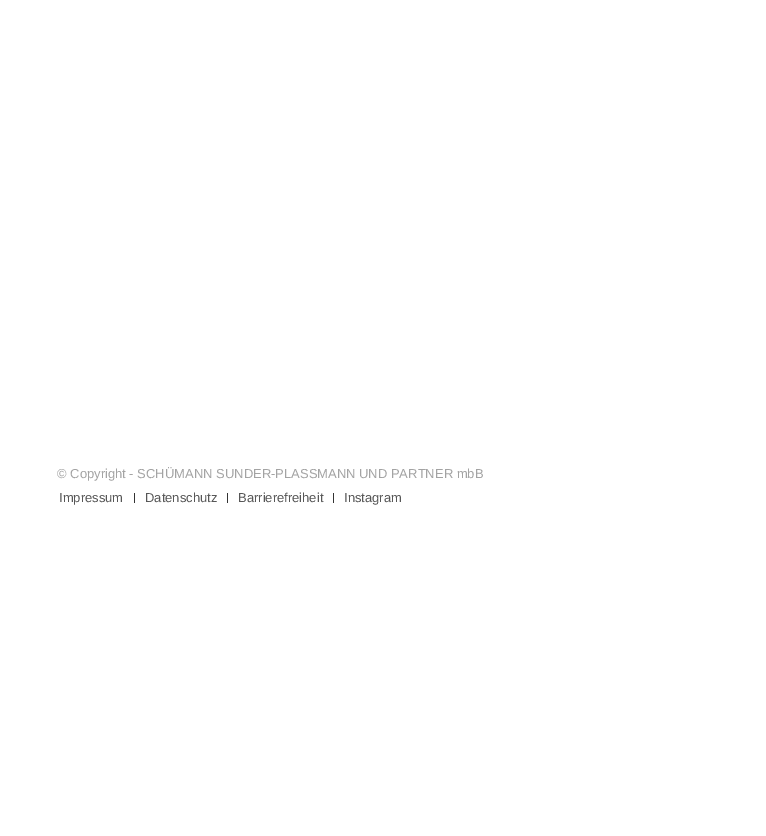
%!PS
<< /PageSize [766 836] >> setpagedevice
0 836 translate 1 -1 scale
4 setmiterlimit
1 setgray
0 0 766 836 rectfill
/LiberationSans-Regular [13 0 0 -13 0 0] selectfont
0.639 setgray
57 478 moveto (© Copyright - SCHÜMANN SUNDER-PLASSMANN UND PARTNER mbB) show
0.341 setgray
59 502 moveto (Impressum) show
0.2 setgray
134 493 1 10 rectfill
0.341 setgray
145 502 moveto (Datenschutz) show
0.2 setgray
227 493 1 10 rectfill
0.341 setgray
238 502 moveto (Barrierefreiheit) show
0.2 setgray
333 493 1 10 rectfill
0.341 setgray
344 502 moveto (Instagram) show
showpage
